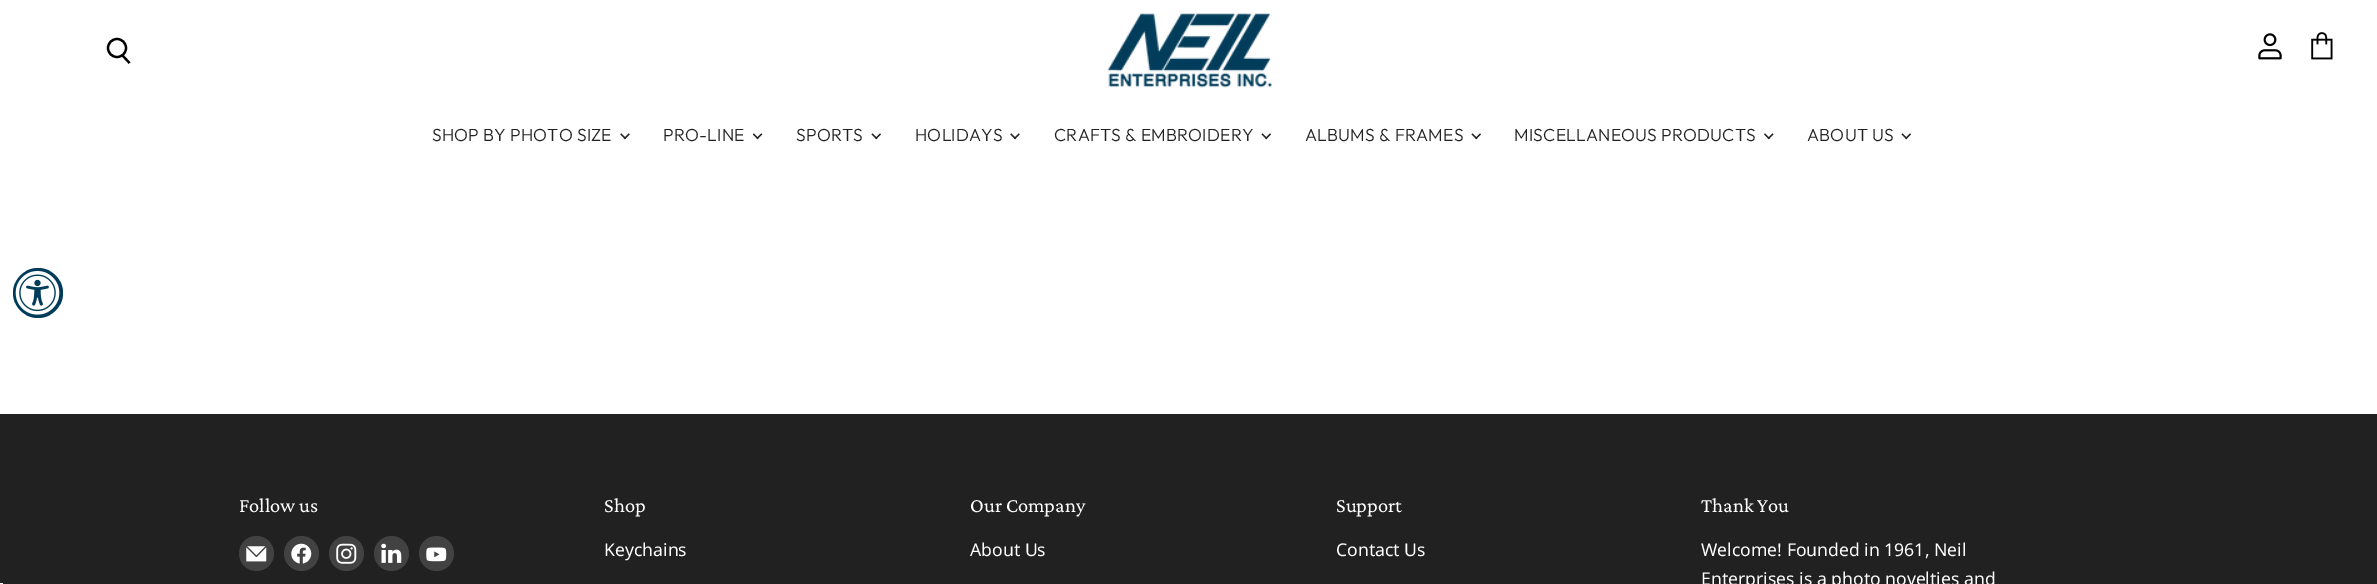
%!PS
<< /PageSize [2377 584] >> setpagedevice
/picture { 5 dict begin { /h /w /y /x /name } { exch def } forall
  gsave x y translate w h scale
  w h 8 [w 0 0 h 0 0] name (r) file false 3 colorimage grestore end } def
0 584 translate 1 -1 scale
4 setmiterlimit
1 setgray
0 0 2377 584 rectfill
0 setgray
2.2 setlinewidth
newpath 129.5 63 moveto 122 55 lineto stroke
newpath 117 48 9 0 360 arc closepath stroke
(img1.rgb) 1107 13 165 75 picture
(img2.rgb) 2258 33 24 27 picture
(img3.rgb) 2311 32 22 28 picture
/Outfit-Light [17.5 0 0 -17.5 0 0] selectfont
0.129 setgray
432 141 moveto 0.2 0 (SHOP BY PHOTO SIZE) ashow
(img4.rgb) 620 133 10 7 picture
663 141 moveto 0.2 0 (PRO-LINE) ashow
(img5.rgb) 753 133 10 7 picture
796 141 moveto 0.2 0 (SPORTS) ashow
(img6.rgb) 871 133 10 7 picture
915 141 moveto 0.2 0 (HOLIDAYS) ashow
(img4.rgb) 1010 133 10 7 picture
1054 141 moveto 0.2 0 (CRAFTS & EMBROIDERY) ashow
(img6.rgb) 1261 133 10 7 picture
1305 141 moveto 0.2 0 (ALBUMS & FRAMES) ashow
(img6.rgb) 1471 133 10 7 picture
1514 141 moveto 0.2 0 (MISCELLANEOUS PRODUCTS) ashow
(img7.rgb) 1764 133 10 7 picture
1807 141 moveto 0.2 0 (ABOUT US) ashow
(img6.rgb) 1901 133 10 7 picture
0 0.235 0.349 setrgbcolor
newpath 38 293 25 0 360 arc closepath fill
(img8.rgb) 15 271 45 44 picture
0.129 setgray
0 414 2377 170 rectfill
0.961 setgray
0 583 3 1 rectfill
/CrimsonPro-Regular [20.5 0 0 -20.5 0 0] selectfont
1 setgray
239 512 moveto (Follow us) show
0.259 setgray
newpath 256.5 553.5 17.5 0 360 arc closepath fill
(img9.rgb) 246 546 21 16 picture
newpath 301.5 553.5 17.5 0 360 arc closepath fill
(img10.rgb) 291 543 21 21 picture
newpath 346.5 553.5 17.5 0 360 arc closepath fill
(img11.rgb) 336 543 21 21 picture
newpath 391.5 553.5 17.5 0 360 arc closepath fill
(img12.rgb) 381 543 21 20 picture
newpath 436.5 553.5 17.5 0 360 arc closepath fill
(img13.rgb) 426 547 21 15 picture
1 setgray
604 512 moveto (Shop) show
/NotoSans-Regular [17.6 0 0 -17.6 0 0] selectfont
604 556 moveto (Keychains) show
/CrimsonPro-Regular [20.5 0 0 -20.5 0 0] selectfont
970 512 moveto (Our Company) show
/NotoSans-Regular [17.6 0 0 -17.6 0 0] selectfont
970 556 moveto (About Us) show
/CrimsonPro-Regular [20.5 0 0 -20.5 0 0] selectfont
1336 512 moveto (Support) show
/NotoSans-Regular [17.6 0 0 -17.6 0 0] selectfont
1336 556 moveto (Contact Us) show
/CrimsonPro-Regular [20.5 0 0 -20.5 0 0] selectfont
1701 512 moveto (Thank You) show
/NotoSans-Regular [17.6 0 0 -17.6 0 0] selectfont
1701 556 moveto (Welcome! Founded in 1961, Neil) show
1701 585 moveto (Enterprises is a photo novelties and) show
showpage
